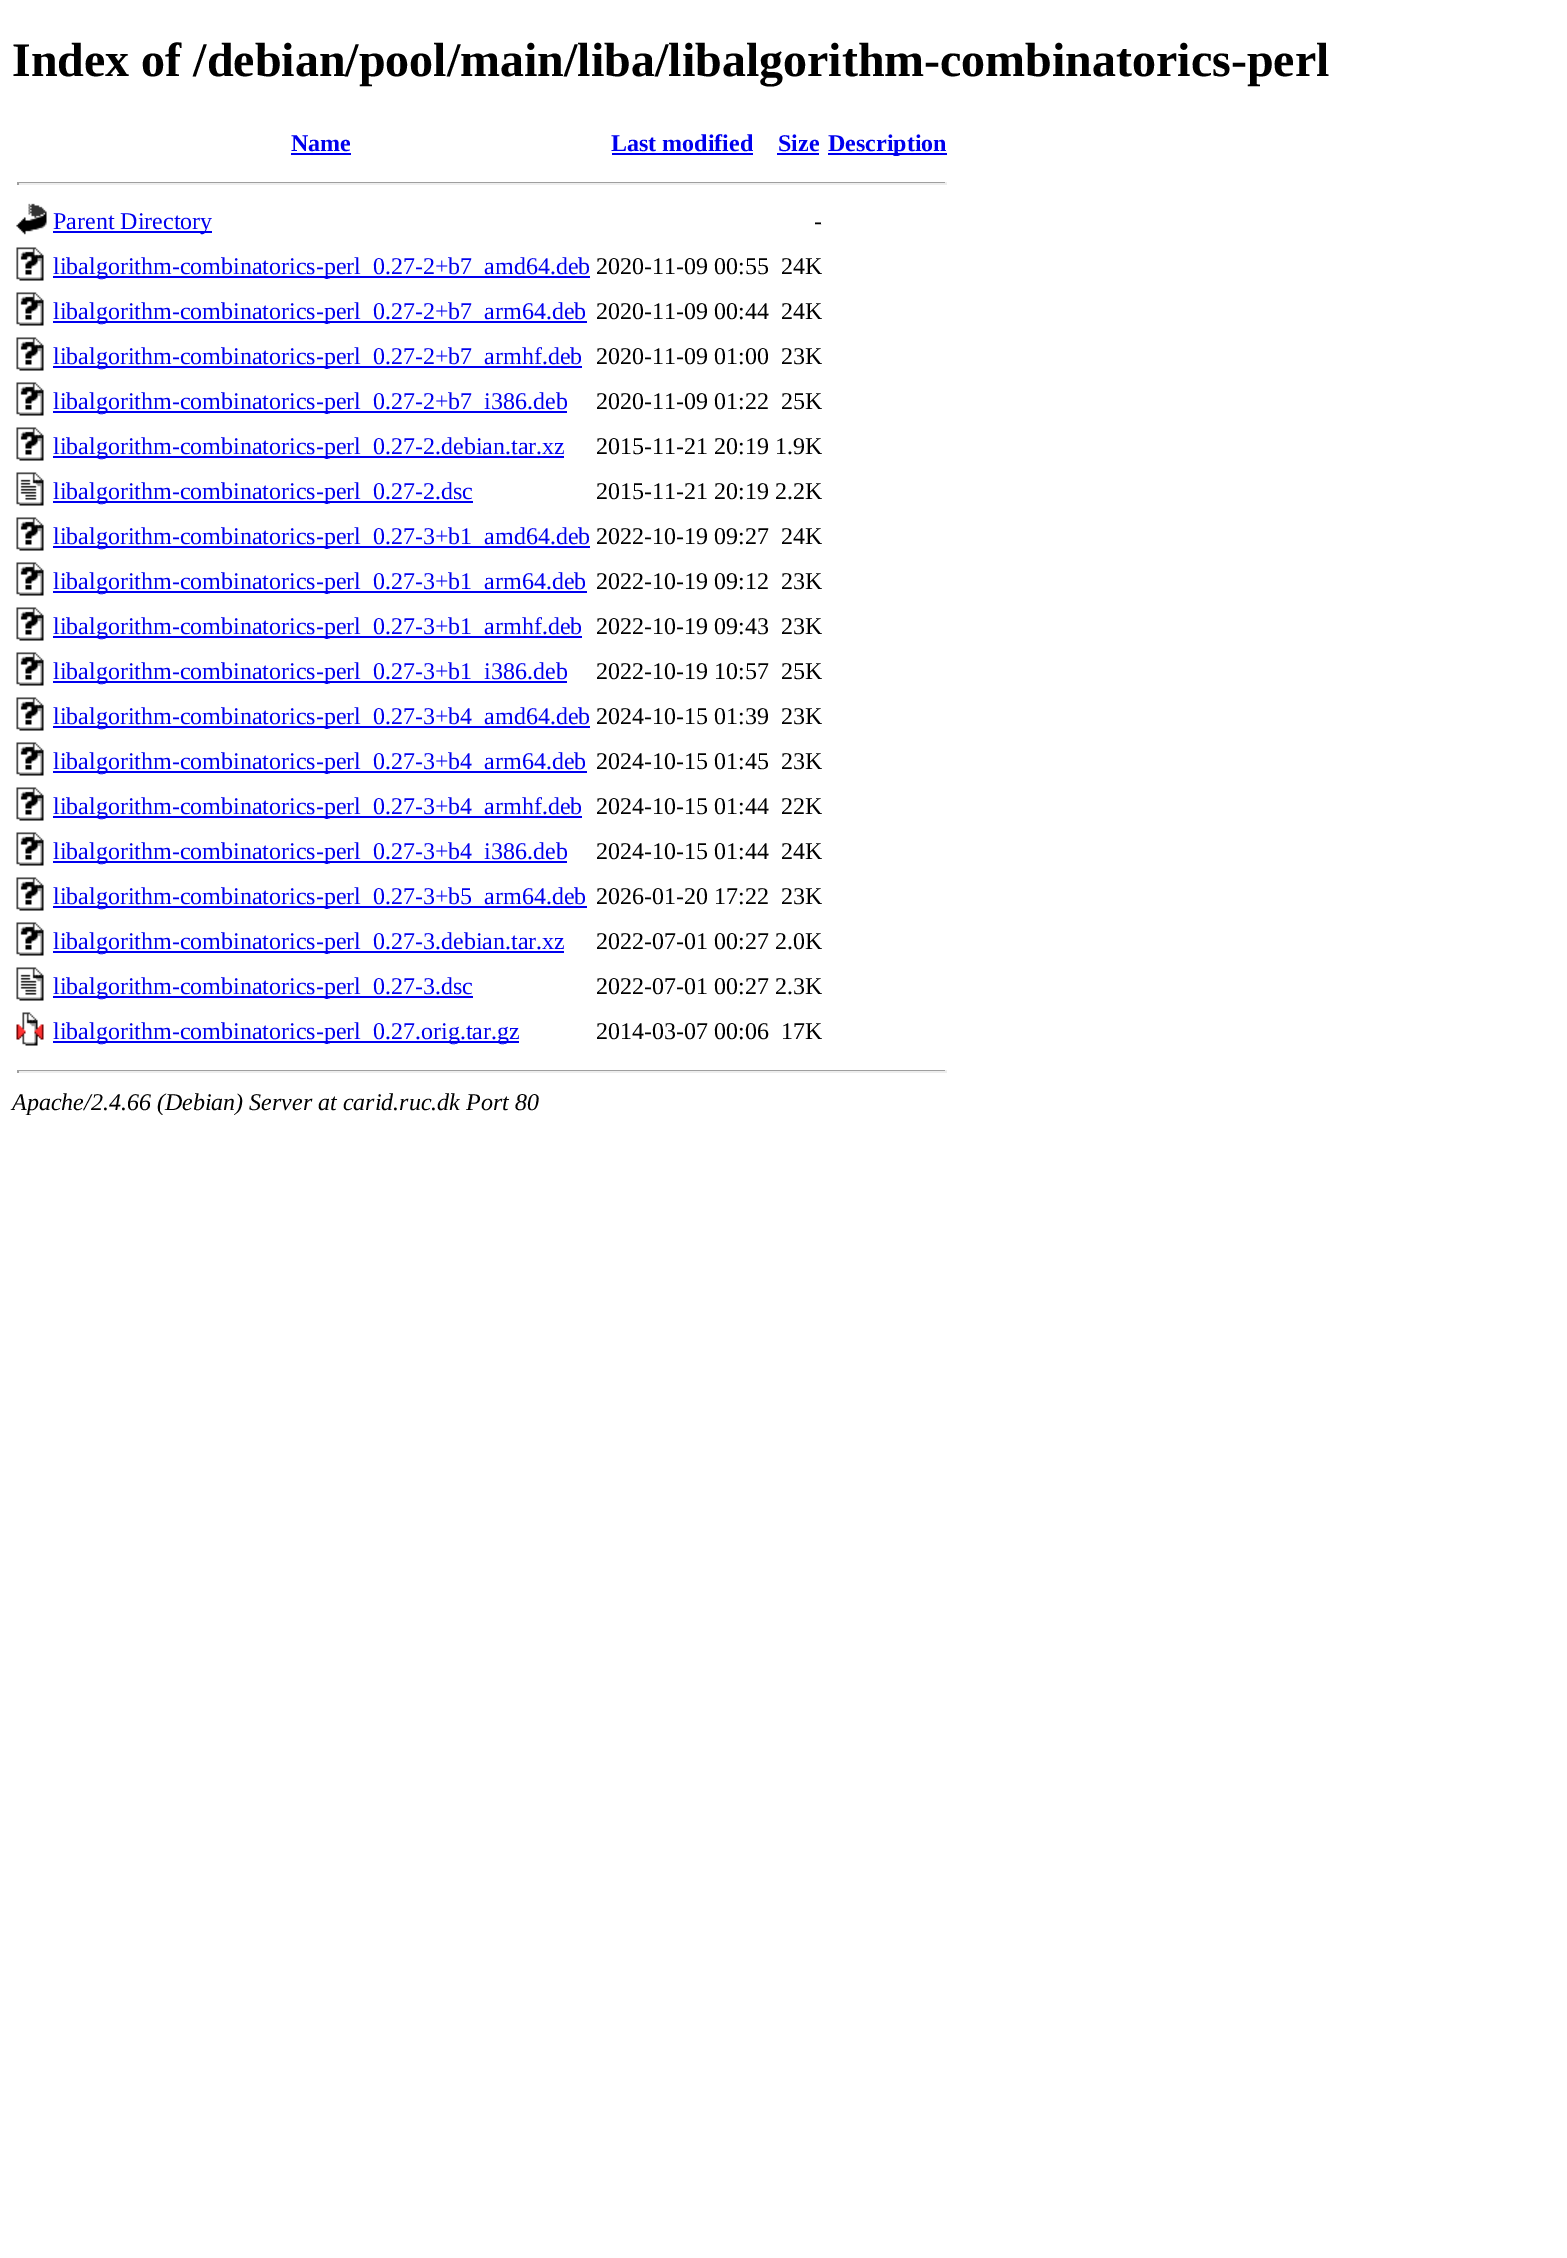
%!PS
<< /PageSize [1567 2258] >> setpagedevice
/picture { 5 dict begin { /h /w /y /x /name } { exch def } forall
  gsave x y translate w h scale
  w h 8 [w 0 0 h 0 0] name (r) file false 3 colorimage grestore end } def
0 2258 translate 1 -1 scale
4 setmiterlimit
1 setgray
0 0 1567 2258 rectfill
/LiberationSerif-Bold [48 0 0 -48 0 0] selectfont
0 setgray
12 76 moveto (Index of /debian/pool/main/liba/libalgorithm-combinatorics-perl) show
/LiberationSerif-Bold [24 0 0 -24 0 0] selectfont
0 0 0.933 setrgbcolor
291 151 moveto (Name) show
291 153 60 2 rectfill
611 151 moveto (Last modified) show
612 153 141 2 rectfill
778 151 moveto (Size) show
777 153 42 2 rectfill
828 153 119 2 rectfill
828 151 moveto (Description) show
0.624 setgray
17 182 930 1 rectfill
0.933 setgray
945 182 2 3 rectfill
17 183 930 2 rectfill
0.624 setgray
17 182 2 3 rectfill
(img1.rgb) 16 203 31 32 picture
0 0 0.933 setrgbcolor
53 231 159 2 rectfill
/LiberationSerif-Regular [24 0 0 -24 0 0] selectfont
53 229 moveto (Parent Directory) show
0 setgray
814 229 moveto (-) show
(img2.rgb) 16 247 28 34 picture
0 0 0.933 setrgbcolor
53 276 537 2 rectfill
53 274 moveto (libalgorithm-combinatorics-perl_0.27-2+b7_amd64.deb) show
0 setgray
596 274 moveto (2020-11-09 00:55) show
781 274 moveto (24K) show
(img2.rgb) 16 292 28 34 picture
0 0 0.933 setrgbcolor
53 321 534 2 rectfill
53 319 moveto (libalgorithm-combinatorics-perl_0.27-2+b7_arm64.deb) show
0 setgray
596 319 moveto (2020-11-09 00:44) show
781 319 moveto (24K) show
(img2.rgb) 16 337 28 34 picture
0 0 0.933 setrgbcolor
53 366 529 2 rectfill
53 364 moveto (libalgorithm-combinatorics-perl_0.27-2+b7_armhf.deb) show
0 setgray
596 364 moveto (2020-11-09 01:00) show
781 364 moveto (23K) show
(img2.rgb) 16 382 28 34 picture
0 0 0.933 setrgbcolor
53 411 514 2 rectfill
53 409 moveto (libalgorithm-combinatorics-perl_0.27-2+b7_i386.deb) show
0 setgray
596 409 moveto (2020-11-09 01:22) show
781 409 moveto (25K) show
(img2.rgb) 16 427 28 34 picture
0 0 0.933 setrgbcolor
53 456 511 2 rectfill
53 454 moveto (libalgorithm-combinatorics-perl_0.27-2.debian.tar.xz) show
0 setgray
596 454 moveto (2015-11-21 20:19 1.9K) show
(img3.rgb) 16 472 28 34 picture
0 0 0.933 setrgbcolor
53 501 420 2 rectfill
53 499 moveto (libalgorithm-combinatorics-perl_0.27-2.dsc) show
0 setgray
596 499 moveto (2015-11-21 20:19 2.2K) show
(img2.rgb) 16 517 28 34 picture
0 0 0.933 setrgbcolor
53 546 537 2 rectfill
53 544 moveto (libalgorithm-combinatorics-perl_0.27-3+b1_amd64.deb) show
0 setgray
596 544 moveto (2022-10-19 09:27) show
781 544 moveto (24K) show
(img2.rgb) 16 562 28 34 picture
0 0 0.933 setrgbcolor
53 591 534 2 rectfill
53 589 moveto (libalgorithm-combinatorics-perl_0.27-3+b1_arm64.deb) show
0 setgray
596 589 moveto (2022-10-19 09:12) show
781 589 moveto (23K) show
(img2.rgb) 16 607 28 34 picture
0 0 0.933 setrgbcolor
53 636 529 2 rectfill
53 634 moveto (libalgorithm-combinatorics-perl_0.27-3+b1_armhf.deb) show
0 setgray
596 634 moveto (2022-10-19 09:43) show
781 634 moveto (23K) show
(img2.rgb) 16 652 28 34 picture
0 0 0.933 setrgbcolor
53 681 514 2 rectfill
53 679 moveto (libalgorithm-combinatorics-perl_0.27-3+b1_i386.deb) show
0 setgray
596 679 moveto (2022-10-19 10:57) show
781 679 moveto (25K) show
(img2.rgb) 16 697 28 34 picture
0 0 0.933 setrgbcolor
53 726 537 2 rectfill
53 724 moveto (libalgorithm-combinatorics-perl_0.27-3+b4_amd64.deb) show
0 setgray
596 724 moveto (2024-10-15 01:39) show
781 724 moveto (23K) show
(img2.rgb) 16 742 28 34 picture
0 0 0.933 setrgbcolor
53 771 534 2 rectfill
53 769 moveto (libalgorithm-combinatorics-perl_0.27-3+b4_arm64.deb) show
0 setgray
596 769 moveto (2024-10-15 01:45) show
781 769 moveto (23K) show
(img2.rgb) 16 787 28 34 picture
0 0 0.933 setrgbcolor
53 816 529 2 rectfill
53 814 moveto (libalgorithm-combinatorics-perl_0.27-3+b4_armhf.deb) show
0 setgray
596 814 moveto (2024-10-15 01:44) show
781 814 moveto (22K) show
(img2.rgb) 16 832 28 34 picture
0 0 0.933 setrgbcolor
53 861 514 2 rectfill
53 859 moveto (libalgorithm-combinatorics-perl_0.27-3+b4_i386.deb) show
0 setgray
596 859 moveto (2024-10-15 01:44) show
781 859 moveto (24K) show
(img2.rgb) 16 877 28 34 picture
0 0 0.933 setrgbcolor
53 906 534 2 rectfill
53 904 moveto (libalgorithm-combinatorics-perl_0.27-3+b5_arm64.deb) show
0 setgray
596 904 moveto (2026-01-20 17:22) show
781 904 moveto (23K) show
(img2.rgb) 16 922 28 34 picture
0 0 0.933 setrgbcolor
53 951 511 2 rectfill
53 949 moveto (libalgorithm-combinatorics-perl_0.27-3.debian.tar.xz) show
0 setgray
596 949 moveto (2022-07-01 00:27 2.0K) show
(img3.rgb) 16 967 28 34 picture
0 0 0.933 setrgbcolor
53 996 420 2 rectfill
53 994 moveto (libalgorithm-combinatorics-perl_0.27-3.dsc) show
0 setgray
596 994 moveto (2022-07-01 00:27 2.3K) show
(img4.rgb) 16 1012 28 34 picture
0 0 0.933 setrgbcolor
53 1041 466 2 rectfill
53 1039 moveto (libalgorithm-combinatorics-perl_0.27.orig.tar.gz) show
0 setgray
596 1039 moveto (2014-03-07 00:06) show
781 1039 moveto (17K) show
0.624 setgray
17 1070 930 1 rectfill
0.933 setgray
945 1070 2 3 rectfill
17 1071 930 2 rectfill
0.624 setgray
17 1070 2 3 rectfill
/LiberationSerif-Italic [24 0 0 -24 0 0] selectfont
0 setgray
12 1110 moveto (Apache/2.4.66 \(Debian\) Server at carid.ruc.dk Port 80) show
showpage
